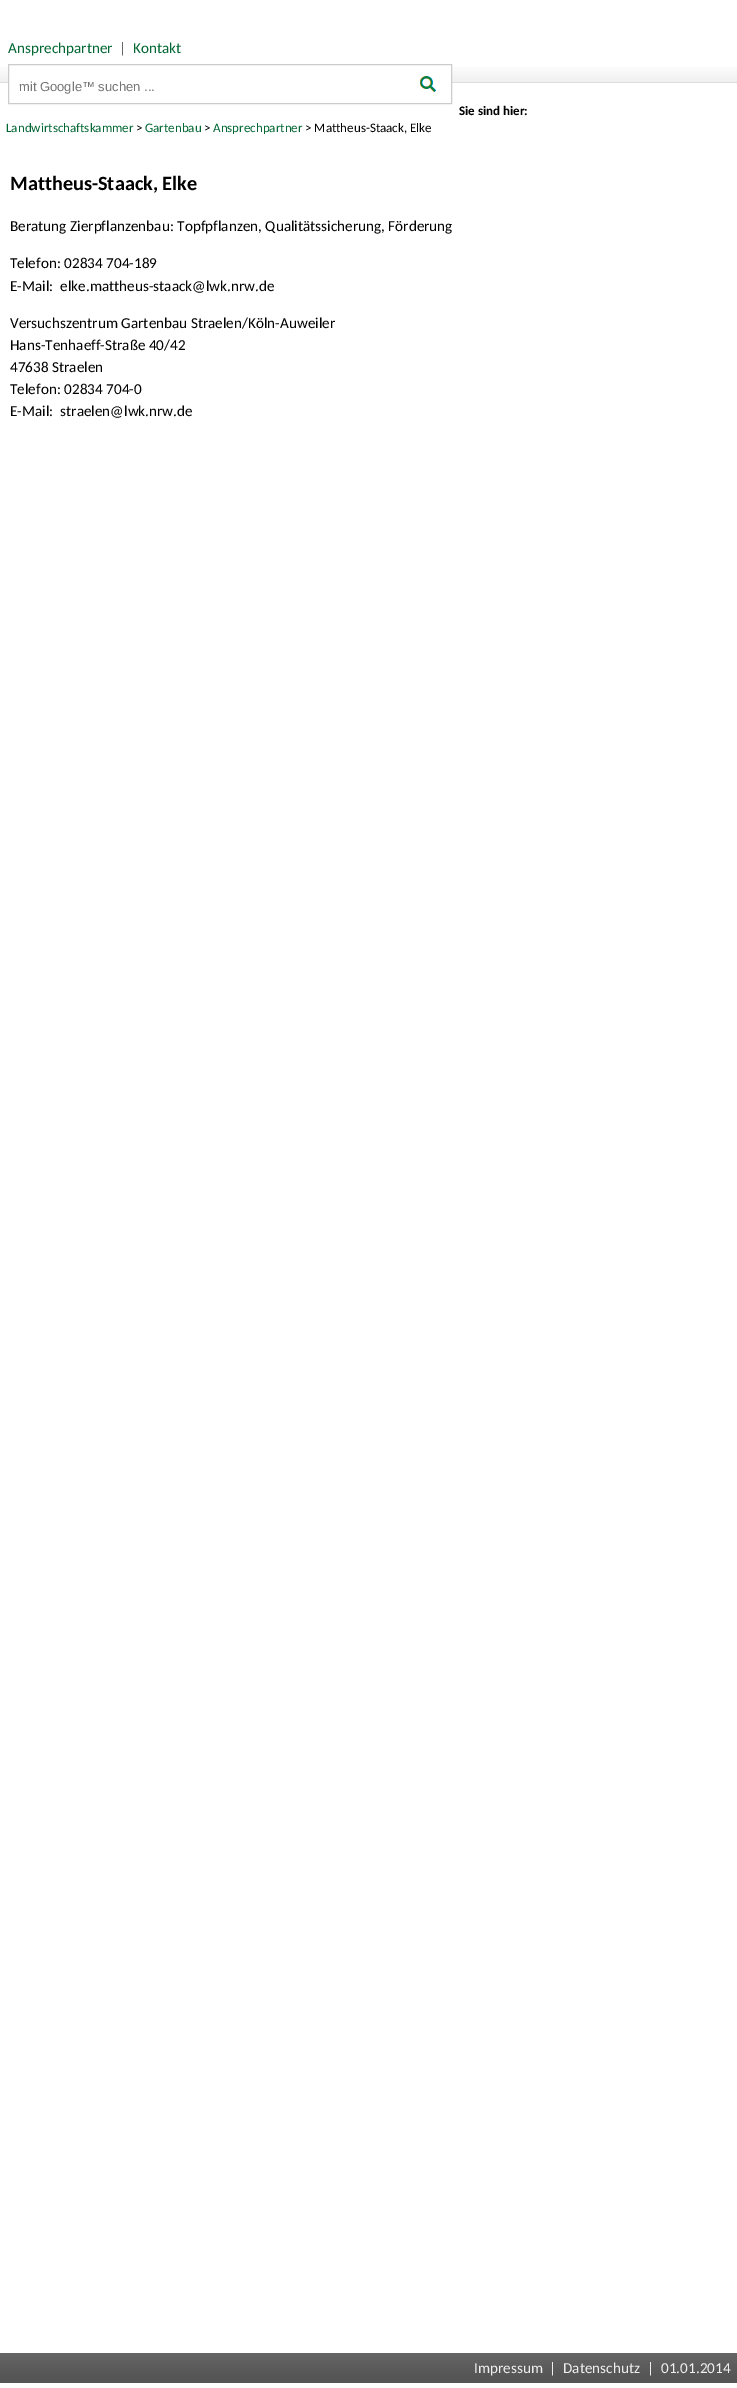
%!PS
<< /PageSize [737 2388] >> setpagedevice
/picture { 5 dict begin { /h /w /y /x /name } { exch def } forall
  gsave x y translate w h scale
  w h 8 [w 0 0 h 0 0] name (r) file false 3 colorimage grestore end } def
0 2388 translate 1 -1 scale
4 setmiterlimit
1 setgray
0 0 737 2388 rectfill
/Carlito-Regular [15.2 0 0 -15.2 0 0] selectfont
0 0.4 0.2 setrgbcolor
8 53 moveto (Ansprechpartner) show
0.4 setgray
119 53 moveto (|) show
0 0.4 0.2 setrgbcolor
133 53 moveto (Kontakt) show
gsave newpath 0 67 moveto 737 67 lineto 737 82 lineto 0 82 lineto closepath clip newpath
<< /ShadingType 2 /ColorSpace /DeviceRGB /Coords [369 64 369 82] /Extend [true true] /Function << /FunctionType 2 /Domain [0 1] /C0 [1 1 1] /C1 [0.941 0.941 0.941] /N 1 >> >> shfill grestore
0.867 setgray
0 82 737 1 rectfill
1 setgray
9 67 442 16 rectfill
0.8 setgray
8.5 64.5 443 39 rectstroke
/LiberationSans-Regular [13 0 0 -13 0 0] selectfont
0.459 setgray
19 91 moveto (mit Google™ suchen ...) show
(img1.rgb) 420 76 16 16 picture
/Carlito-Bold [13 0 0 -13 0 0] selectfont
0 setgray
459 115 moveto (Sie sind hier:) show
/Carlito-Regular [13 0 0 -13 0 0] selectfont
0 0.4 0.2 setrgbcolor
6 132 moveto (Landwirtschaftskammer) show
0 setgray
136 132 moveto (>) show
0 0.4 0.2 setrgbcolor
145 132 moveto (Gartenbau) show
0 setgray
204 132 moveto (>) show
0 0.4 0.2 setrgbcolor
213 132 moveto (Ansprechpartner) show
0 setgray
305 132 moveto (> Mattheus-Staack, Elke) show
/Carlito-Bold [20.25 0 0 -20.25 0 0] selectfont
10 190 moveto (Mattheus-Staack, Elke) show
/Carlito-Regular [15.2 0 0 -15.2 0 0] selectfont
10 231 moveto (Beratung Zierpflanzenbau: Topfpflanzen, Qualitätssicherung, Förderung) show
10 268 moveto (Telefon: 02834 704-189) show
10 291 moveto (E-Mail:  elke.mattheus-staack@lwk.nrw.de) show
10 328 moveto (Versuchszentrum Gartenbau Straelen/Köln-Auweiler) show
10 350 moveto (Hans-Tenhaeff-Straße 40/42) show
10 372 moveto (47638 Straelen) show
10 394 moveto (Telefon: 02834 704-0) show
10 416 moveto (E-Mail:  straelen@lwk.nrw.de) show
gsave newpath 0 2353 moveto 737 2353 lineto 737 2383 lineto 0 2383 lineto closepath clip newpath
<< /ShadingType 2 /ColorSpace /DeviceRGB /Coords [369 2353 369 2383] /Extend [true true] /Function << /FunctionType 3 /Domain [0 1] /Functions [<< /FunctionType 2 /Domain [0 1] /C0 [0.4 0.4 0.4] /C1 [0.333 0.333 0.333] /N 1 >> << /FunctionType 2 /Domain [0 1] /C0 [0.333 0.333 0.333] /C1 [0.333 0.333 0.333] /N 1 >>] /Bounds [0.8] /Encode [0 1 0 1] >> >> shfill grestore
0.933 setgray
474 2373 moveto (Impressum) show
/Carlito-Regular [15.25 0 0 -15.25 0 0] selectfont
549 2373 moveto (|) show
/Carlito-Regular [15.2 0 0 -15.2 0 0] selectfont
563 2373 moveto (Datenschutz) show
/Carlito-Regular [15.25 0 0 -15.25 0 0] selectfont
647 2373 moveto (|  01.01.2014) show
showpage
